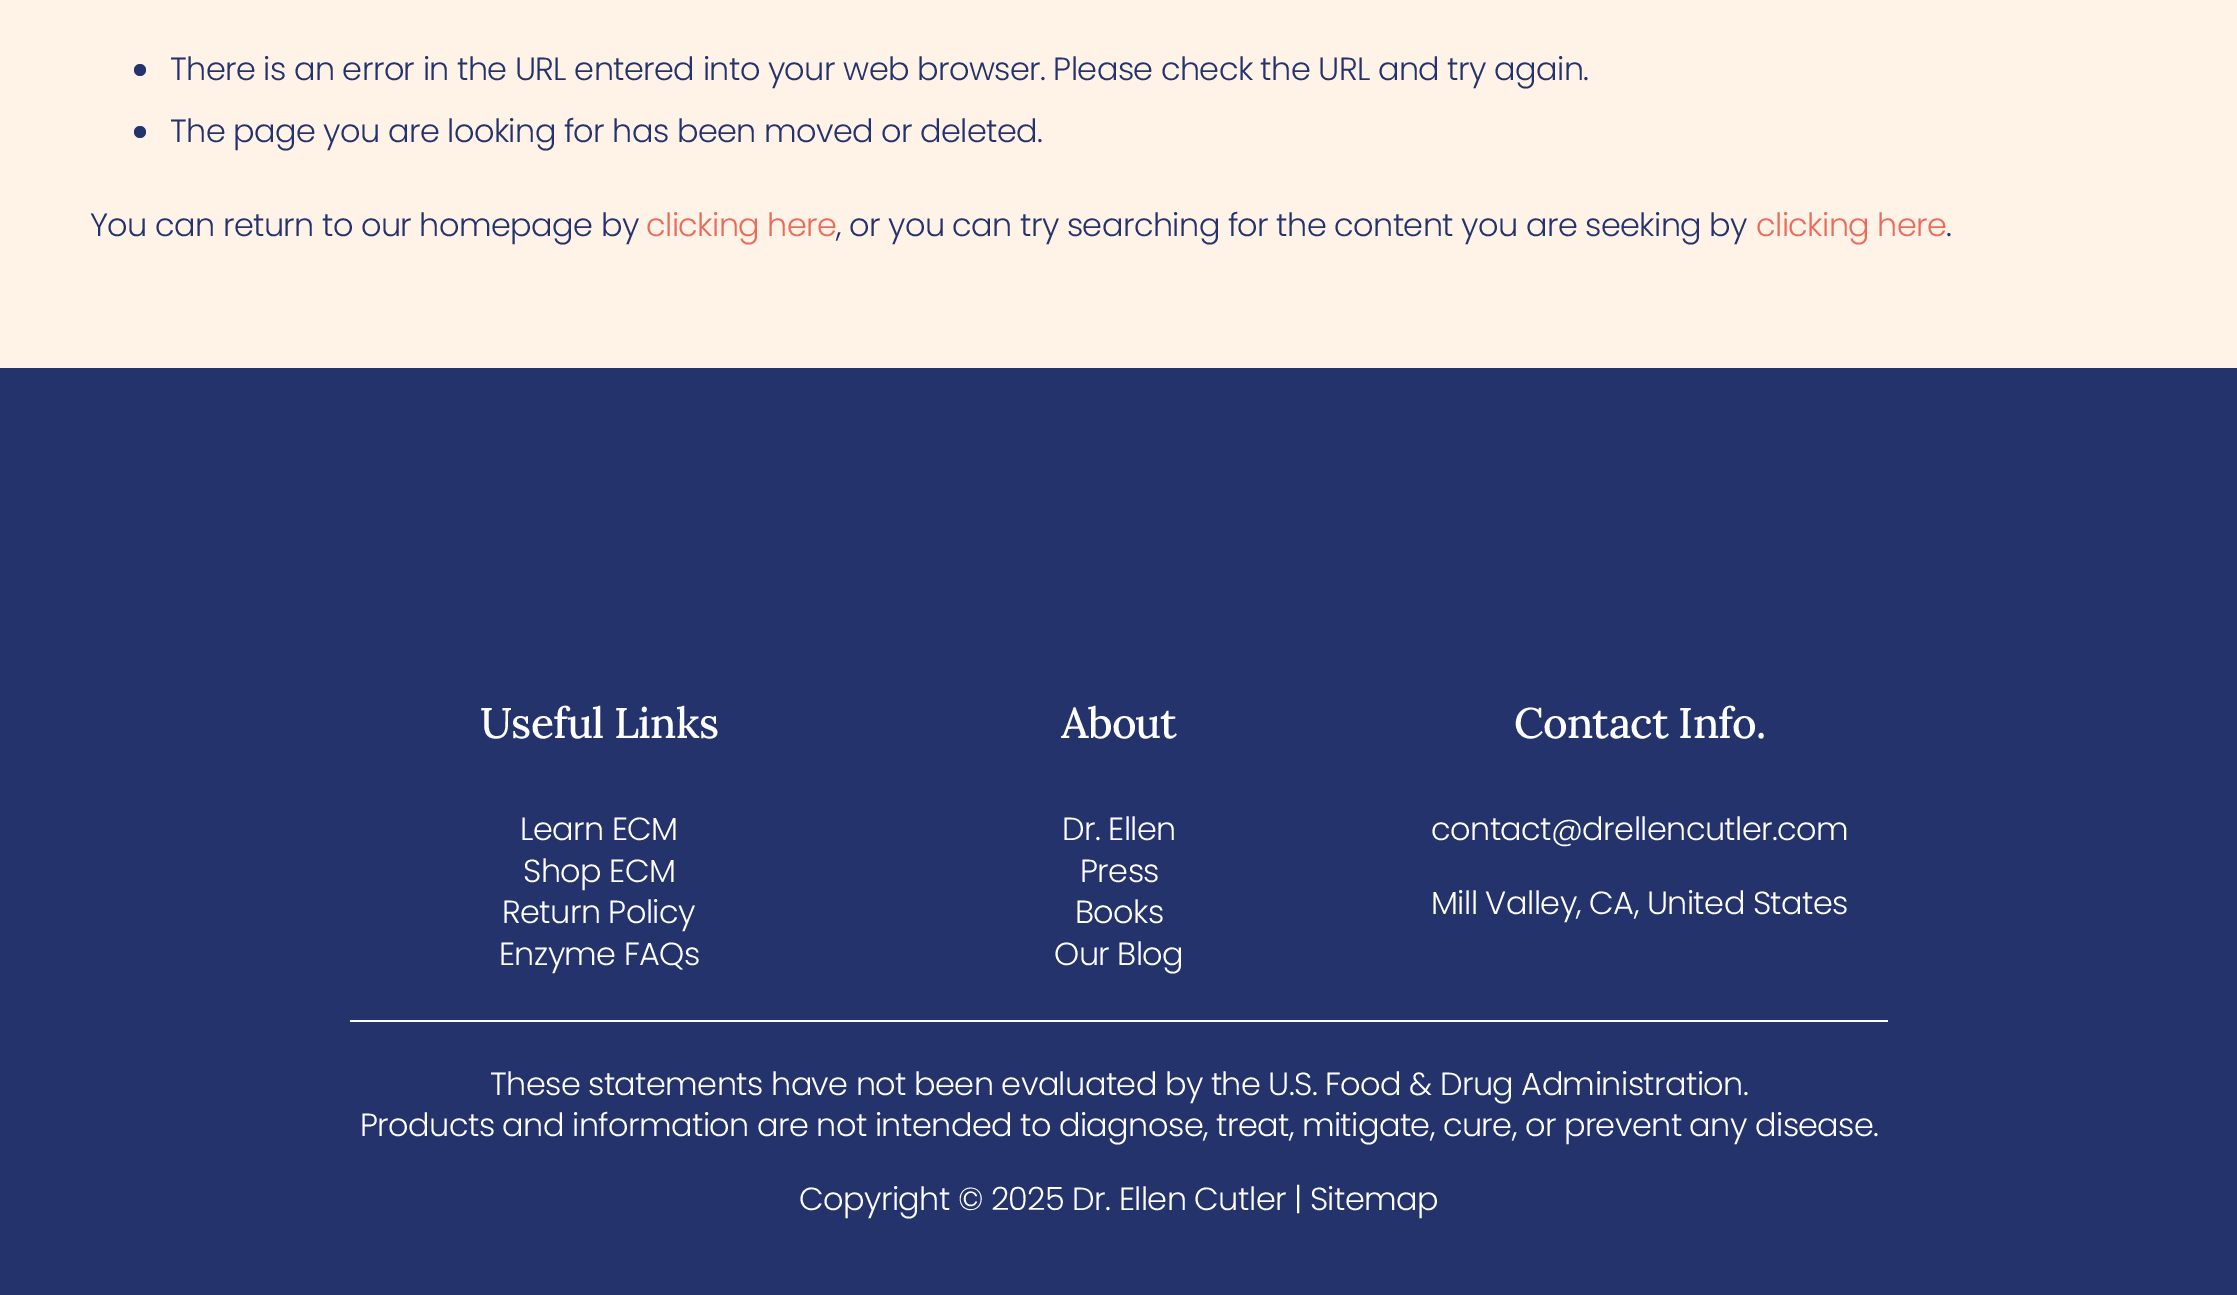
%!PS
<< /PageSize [2237 1295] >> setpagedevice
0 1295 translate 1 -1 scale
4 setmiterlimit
1 0.953 0.91 setrgbcolor
0 0 2237 1295 rectfill
0.145 0.2 0.427 setrgbcolor
newpath 140 70 6 0 360 arc closepath fill
/Poppins-Light [32 0 0 -32 0 0] selectfont
170 80 moveto -0.64 0 (There is an error in the URL entered into your web browser. Please check the URL and try again.) ashow
newpath 140 132 6 0 360 arc closepath fill
170 142 moveto -0.64 0 (The page you are looking for has been moved or deleted.) ashow
90 236 moveto -0.64 0 (You can return to our homepage by) ashow
0.922 0.42 0.357 setrgbcolor
646 236 moveto -0.64 0 (clicking here) ashow
0.145 0.2 0.427 setrgbcolor
836 236 moveto -0.64 0 (, or you can try searching for the content you are seeking by) ashow
0.922 0.42 0.357 setrgbcolor
1756 236 moveto -0.64 0 (clicking here) ashow
0.145 0.2 0.427 setrgbcolor
1946 236 moveto -0.64 0 (.) ashow
0 368 2237 927 rectfill
/Lora-Medium [42.75 0 0 -42.75 0 0] selectfont
1 setgray
480 738 moveto -0.8 0 (Useful Links) ashow
/Poppins-Light [32 0 0 -32 0 0] selectfont
520 840 moveto -0.64 0 (Learn ECM) ashow
523 882 moveto -0.64 0 (Shop ECM) ashow
502 923 moveto -0.64 0 (Return Policy) ashow
499 965 moveto -0.64 0 (Enzyme FAQs) ashow
/Lora-Medium [42.75 0 0 -42.75 0 0] selectfont
1061 738 moveto -0.8 0 (About) ashow
/Poppins-Light [32 0 0 -32 0 0] selectfont
1062 840 moveto -0.64 0 (Dr. Ellen) ashow
1080 882 moveto -0.64 0 (Press) ashow
1075 923 moveto -0.64 0 (Books) ashow
1054 965 moveto -0.64 0 (Our Blog) ashow
/Lora-Medium [42.75 0 0 -42.75 0 0] selectfont
1514 738 moveto -0.8 0 (Contact Info.) ashow
/Poppins-Light [32 0 0 -32 0 0] selectfont
1431 840 moveto -0.64 0 (contact@drellencutler.com) ashow
1431 914 moveto -0.64 0 (Mill Valley, CA, United States) ashow
350 1020 1538 2 rectfill
490 1095 moveto -0.64 0 (These statements have not been evaluated by the U.S. Food & Drug Administration.) ashow
360 1136 moveto -0.64 0 (Products and information are not intended to diagnose, treat, mitigate, cure, or prevent any disease.) ashow
799 1210 moveto -0.64 0 (Copyright © 2025 Dr. Ellen Cutler | Sitemap) ashow
showpage
